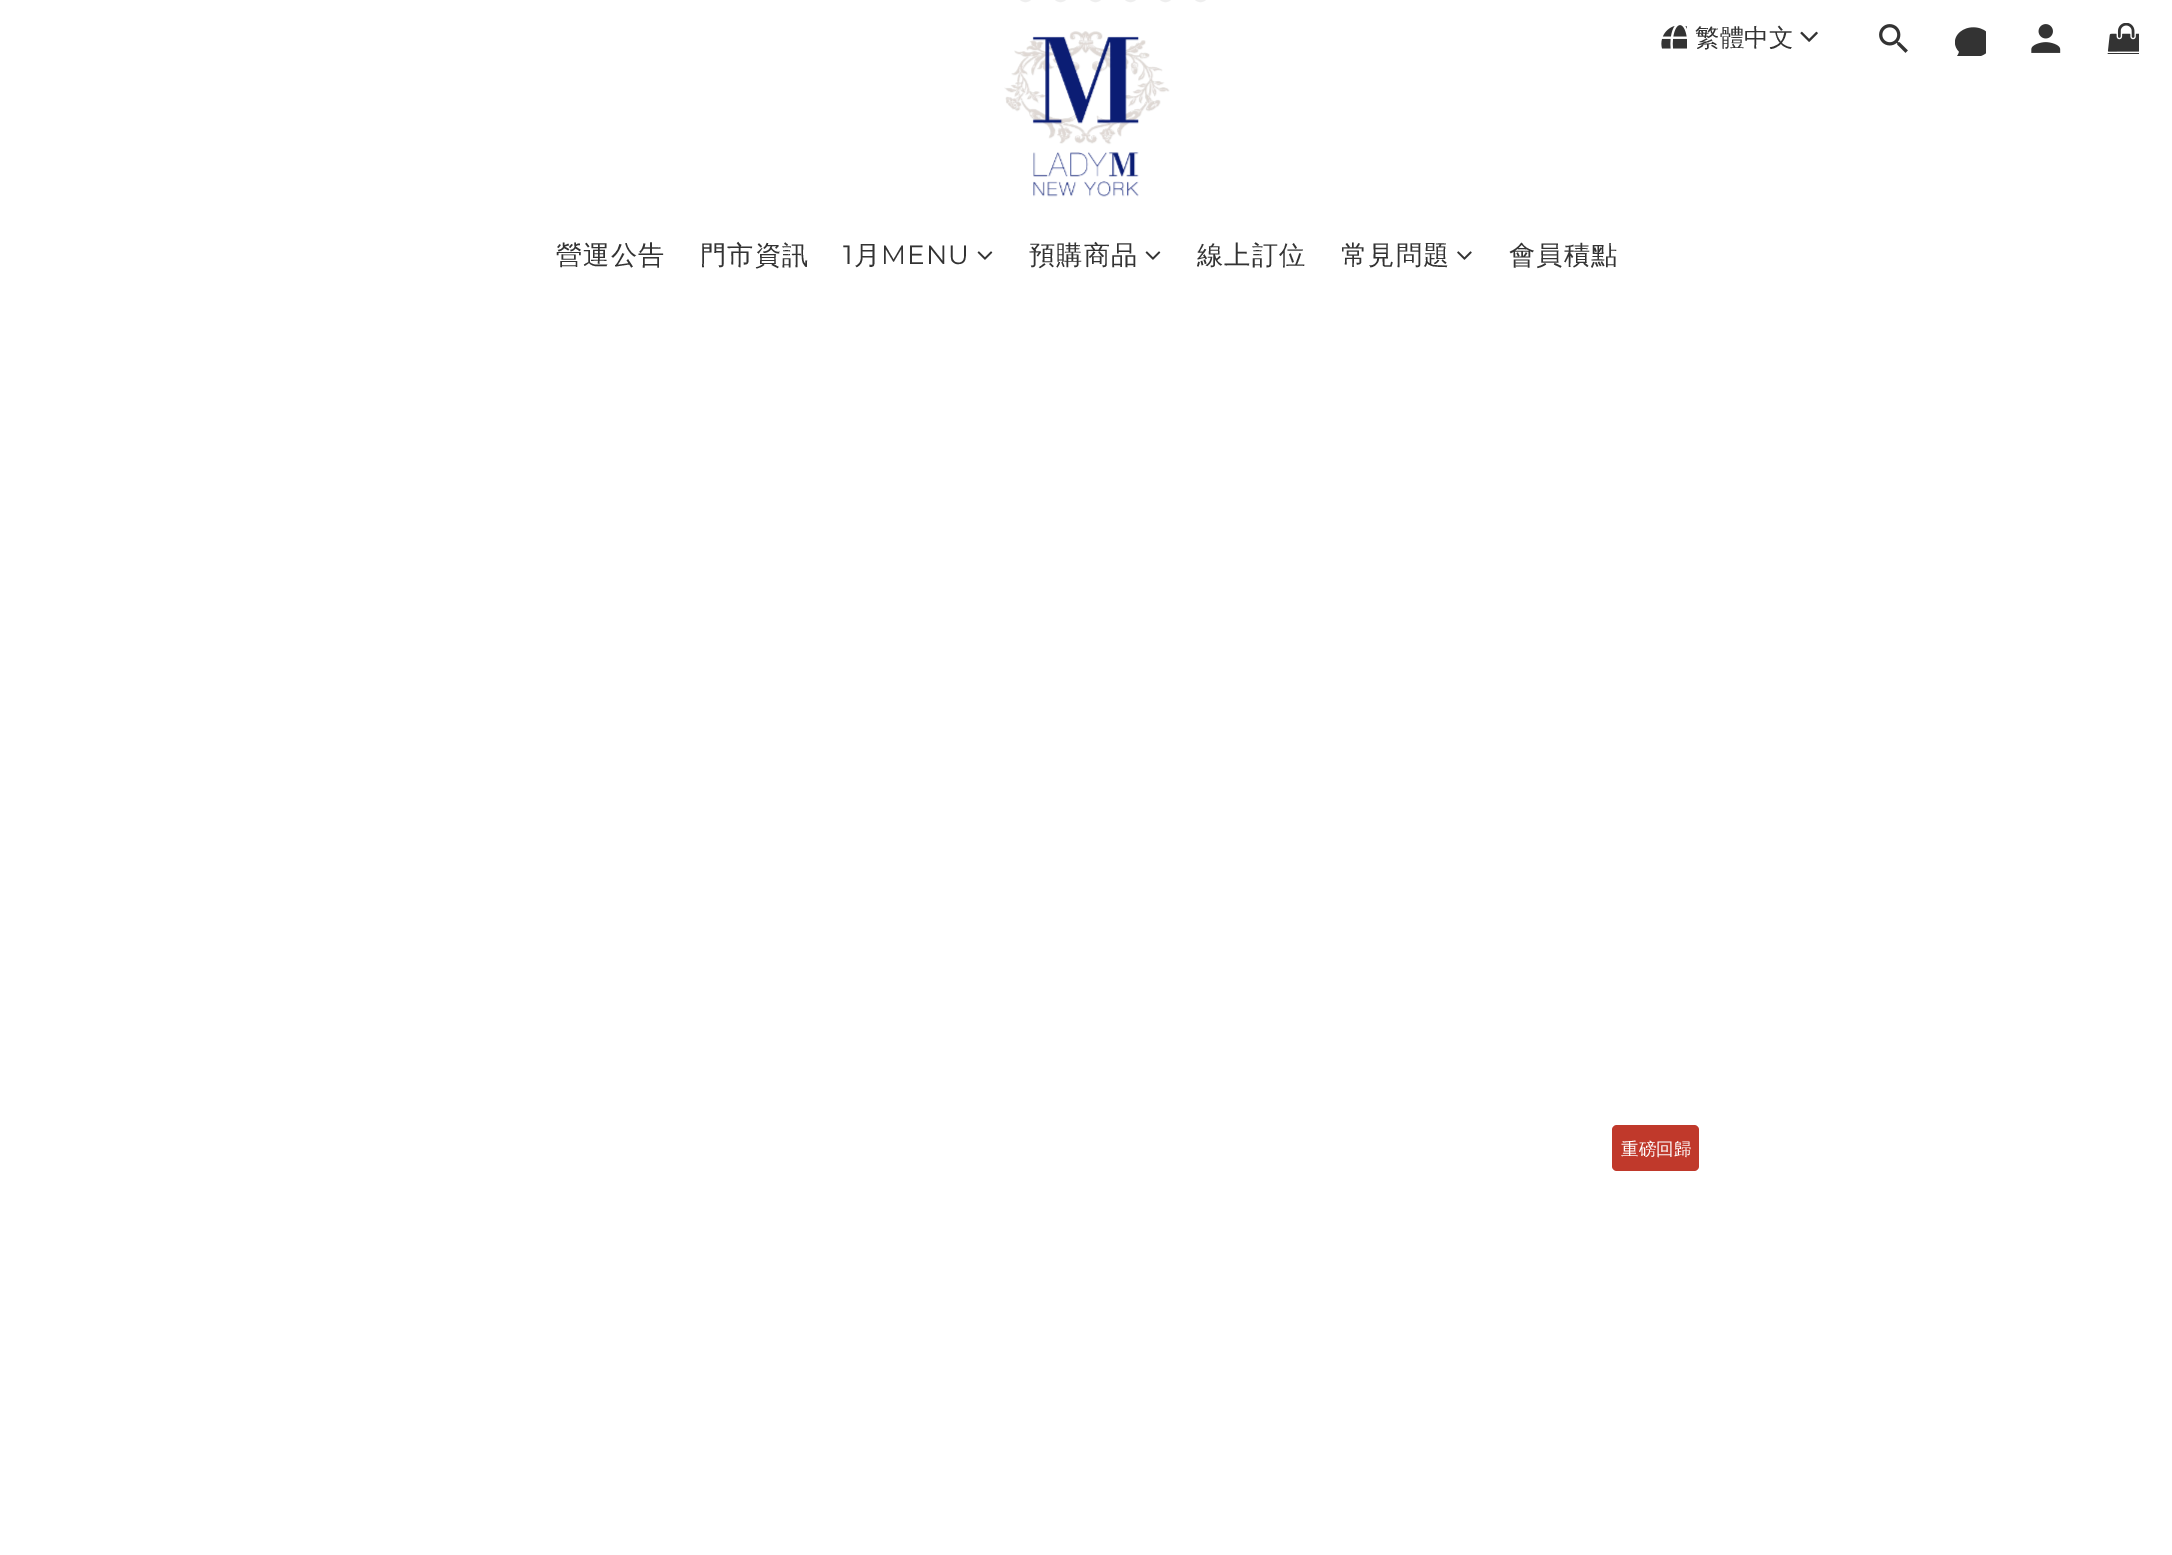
%!PS
<< /PageSize [2172 1555] >> setpagedevice
/roundrect { 5 dict begin { /r /h /w /y /x } { exch def } forall
  x r add y moveto x w add y 2 copy h add r arct x w add y h add x 1 index r arct
  x y h add x y r arct x y 2 copy exch w add exch r arct closepath end } def
/picture { 5 dict begin { /h /w /y /x /name } { exch def } forall
  gsave x y translate w h scale
  w h 8 [w 0 0 h 0 0] name (r) file false 3 colorimage grestore end } def
0 1555 translate 1 -1 scale
4 setmiterlimit
1 setgray
0 0 2172 1555 rectfill
(img1.rgb) 1004 31 166 166 picture
(img2.rgb) 1661 25 26 24 picture
/WenQuanYiZenHei-Medium [24.5 0 0 -24.5 0 0] selectfont
0.2 setgray
1695 46 moveto (繁體中文) show
(img3.rgb) 1800 31 18 11 picture
(img4.rgb) 1879 24 29 29 picture
(img5.rgb) 1955 27 31 29 picture
(img6.rgb) 2031 24 30 29 picture
(img7.rgb) 2107 23 32 31 picture
/WenQuanYiZenHei-Medium [26.25 0 0 -26.25 0 0] selectfont
556 264 moveto 1 0 (營運公告) ashow
700 264 moveto 1 0 (門市資訊) ashow
/Montserrat-Regular [26.25 0 0 -26.25 0 0] selectfont
843 264 moveto 1 0 (1) ashow
/WenQuanYiZenHei-Medium [26.25 0 0 -26.25 0 0] selectfont
854 264 moveto 1 0 (月) ashow
/Montserrat-Regular [26.25 0 0 -26.25 0 0] selectfont
881 264 moveto 1 0 (MENU) ashow
(img8.rgb) 977 251 16 9 picture
/WenQuanYiZenHei-Medium [26.25 0 0 -26.25 0 0] selectfont
1029 264 moveto 1 0 (預購商品) ashow
(img8.rgb) 1145 251 16 9 picture
1197 264 moveto 1 0 (線上訂位) ashow
1341 264 moveto 1 0 (常見問題) ashow
(img9.rgb) 1457 251 15 9 picture
1509 264 moveto 1 0 (會員積點) ashow
0.933 setgray
2 setlinewidth
1018 -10 15 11 7.5 roundrect stroke
1053 -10 15 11 7.5 roundrect stroke
1088 -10 15 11 7.5 roundrect stroke
1123 -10 15 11 7.5 roundrect stroke
1158 -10 15 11 7.5 roundrect stroke
1193 -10 15 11 7.5 roundrect stroke
0.753 0.224 0.169 setrgbcolor
1612 1125 87 46 5 roundrect fill
/WenQuanYiZenHei-Medium [17.5 0 0 -17.5 0 0] selectfont
1 setgray
1621 1155 moveto (重磅回歸) show
showpage
